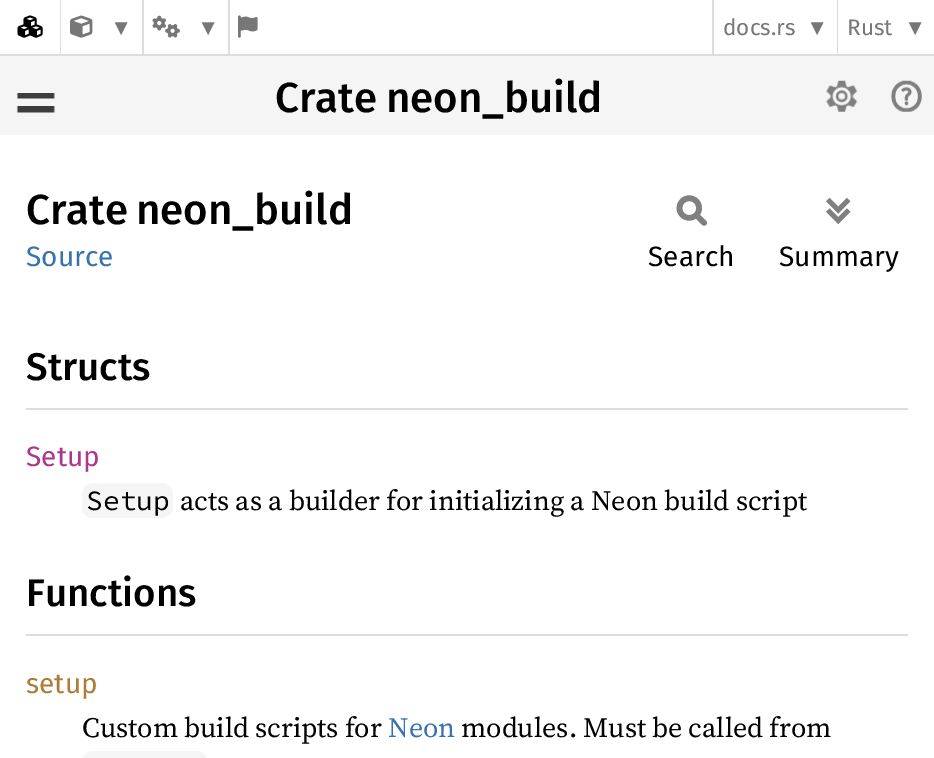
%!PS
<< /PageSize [934 758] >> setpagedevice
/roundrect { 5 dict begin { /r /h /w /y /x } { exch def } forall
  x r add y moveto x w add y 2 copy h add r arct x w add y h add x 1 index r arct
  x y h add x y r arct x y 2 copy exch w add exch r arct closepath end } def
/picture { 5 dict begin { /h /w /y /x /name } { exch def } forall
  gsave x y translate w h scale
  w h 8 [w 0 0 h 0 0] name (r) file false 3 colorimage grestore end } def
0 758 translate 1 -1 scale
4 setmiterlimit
1 setgray
0 0 934 758 rectfill
0.867 setgray
0 54 934 2 rectfill
(img1.rgb) 17 15 26 23 picture
60 0 1 54 rectfill
(img2.rgb) 70 15 23 23 picture
/LiberationSans-Regular [22.5 0 0 -22.5 0 0] selectfont
0.467 setgray
110 35 moveto (▼) show
0.867 setgray
142 0 2 54 rectfill
(img3.rgb) 152 15 28 23 picture
0.467 setgray
197 35 moveto (▼) show
0.867 setgray
228 0 2 54 rectfill
(img4.rgb) 238 15 20 23 picture
712 0 2 54 rectfill
/FiraSans-Regular [22.5 0 0 -22.5 0 0] selectfont
0.467 setgray
723 35 moveto (docs.rs) show
/LiberationSans-Regular [22.5 0 0 -22.5 0 0] selectfont
806 35 moveto (▼) show
0.867 setgray
837 0 1 54 rectfill
/FiraSans-Regular [22.5 0 0 -22.5 0 0] selectfont
0.467 setgray
847 35 moveto (Rust) show
/LiberationSans-Regular [22.5 0 0 -22.5 0 0] selectfont
904 35 moveto (▼) show
0.961 setgray
0 56 934 79 rectfill
(img5.rgb) 16 93 39 20 picture
/FiraSans-Medium [42 0 0 -42 0 0] selectfont
0 setgray
275 112 moveto -2 0 32 (Crate neon_build) widthshow
(img6.rgb) 826 80 32 32 picture
(img7.rgb) 891 80 31 32 picture
26 224 moveto (Crate) show
136 224 moveto (neon_build) show
/FiraSans-Regular [28 0 0 -28 0 0] selectfont
0.22 0.451 0.678 setrgbcolor
26 266 moveto (Source) show
(img8.rgb) 676 195 31 31 picture
0 setgray
648 266 moveto (Search) show
(img9.rgb) 826 197 25 28 picture
779 266 moveto (Summary) show
0.867 setgray
26 408 882 2 rectfill
/FiraSans-Medium [38.5 0 0 -38.5 0 0] selectfont
0 setgray
26 380 moveto (Structs) show
/FiraSans-Regular [28 0 0 -28 0 0] selectfont
0.678 0.216 0.541 setrgbcolor
26 466 moveto (Setup) show
0.961 setgray
82 483 91 35 11 roundrect fill
/SourceCodePro-Regular [28 0 0 -28 0 0] selectfont
0 setgray
86 510 moveto (Setup) show
/SourceSerif4-Regular [28 0 0 -28 0 0] selectfont
180 510 moveto -0.25 0 32 (acts as a builder for initializing a Neon build script) widthshow
0.867 setgray
26 634 882 2 rectfill
/FiraSans-Medium [38.5 0 0 -38.5 0 0] selectfont
0 setgray
26 606 moveto (Functions) show
/FiraSans-Regular [28 0 0 -28 0 0] selectfont
0.678 0.486 0.216 setrgbcolor
26 693 moveto (setup) show
/SourceSerif4-Regular [28 0 0 -28 0 0] selectfont
0 setgray
82 737 moveto -0.5 0 32 (Custom build scripts for) widthshow
0.22 0.451 0.678 setrgbcolor
388 737 moveto (Neon) show
0 setgray
461 737 moveto -0.5 0 32 (modules. Must be called from) widthshow
0.961 setgray
82 751 125 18 11 roundrect fill
showpage
